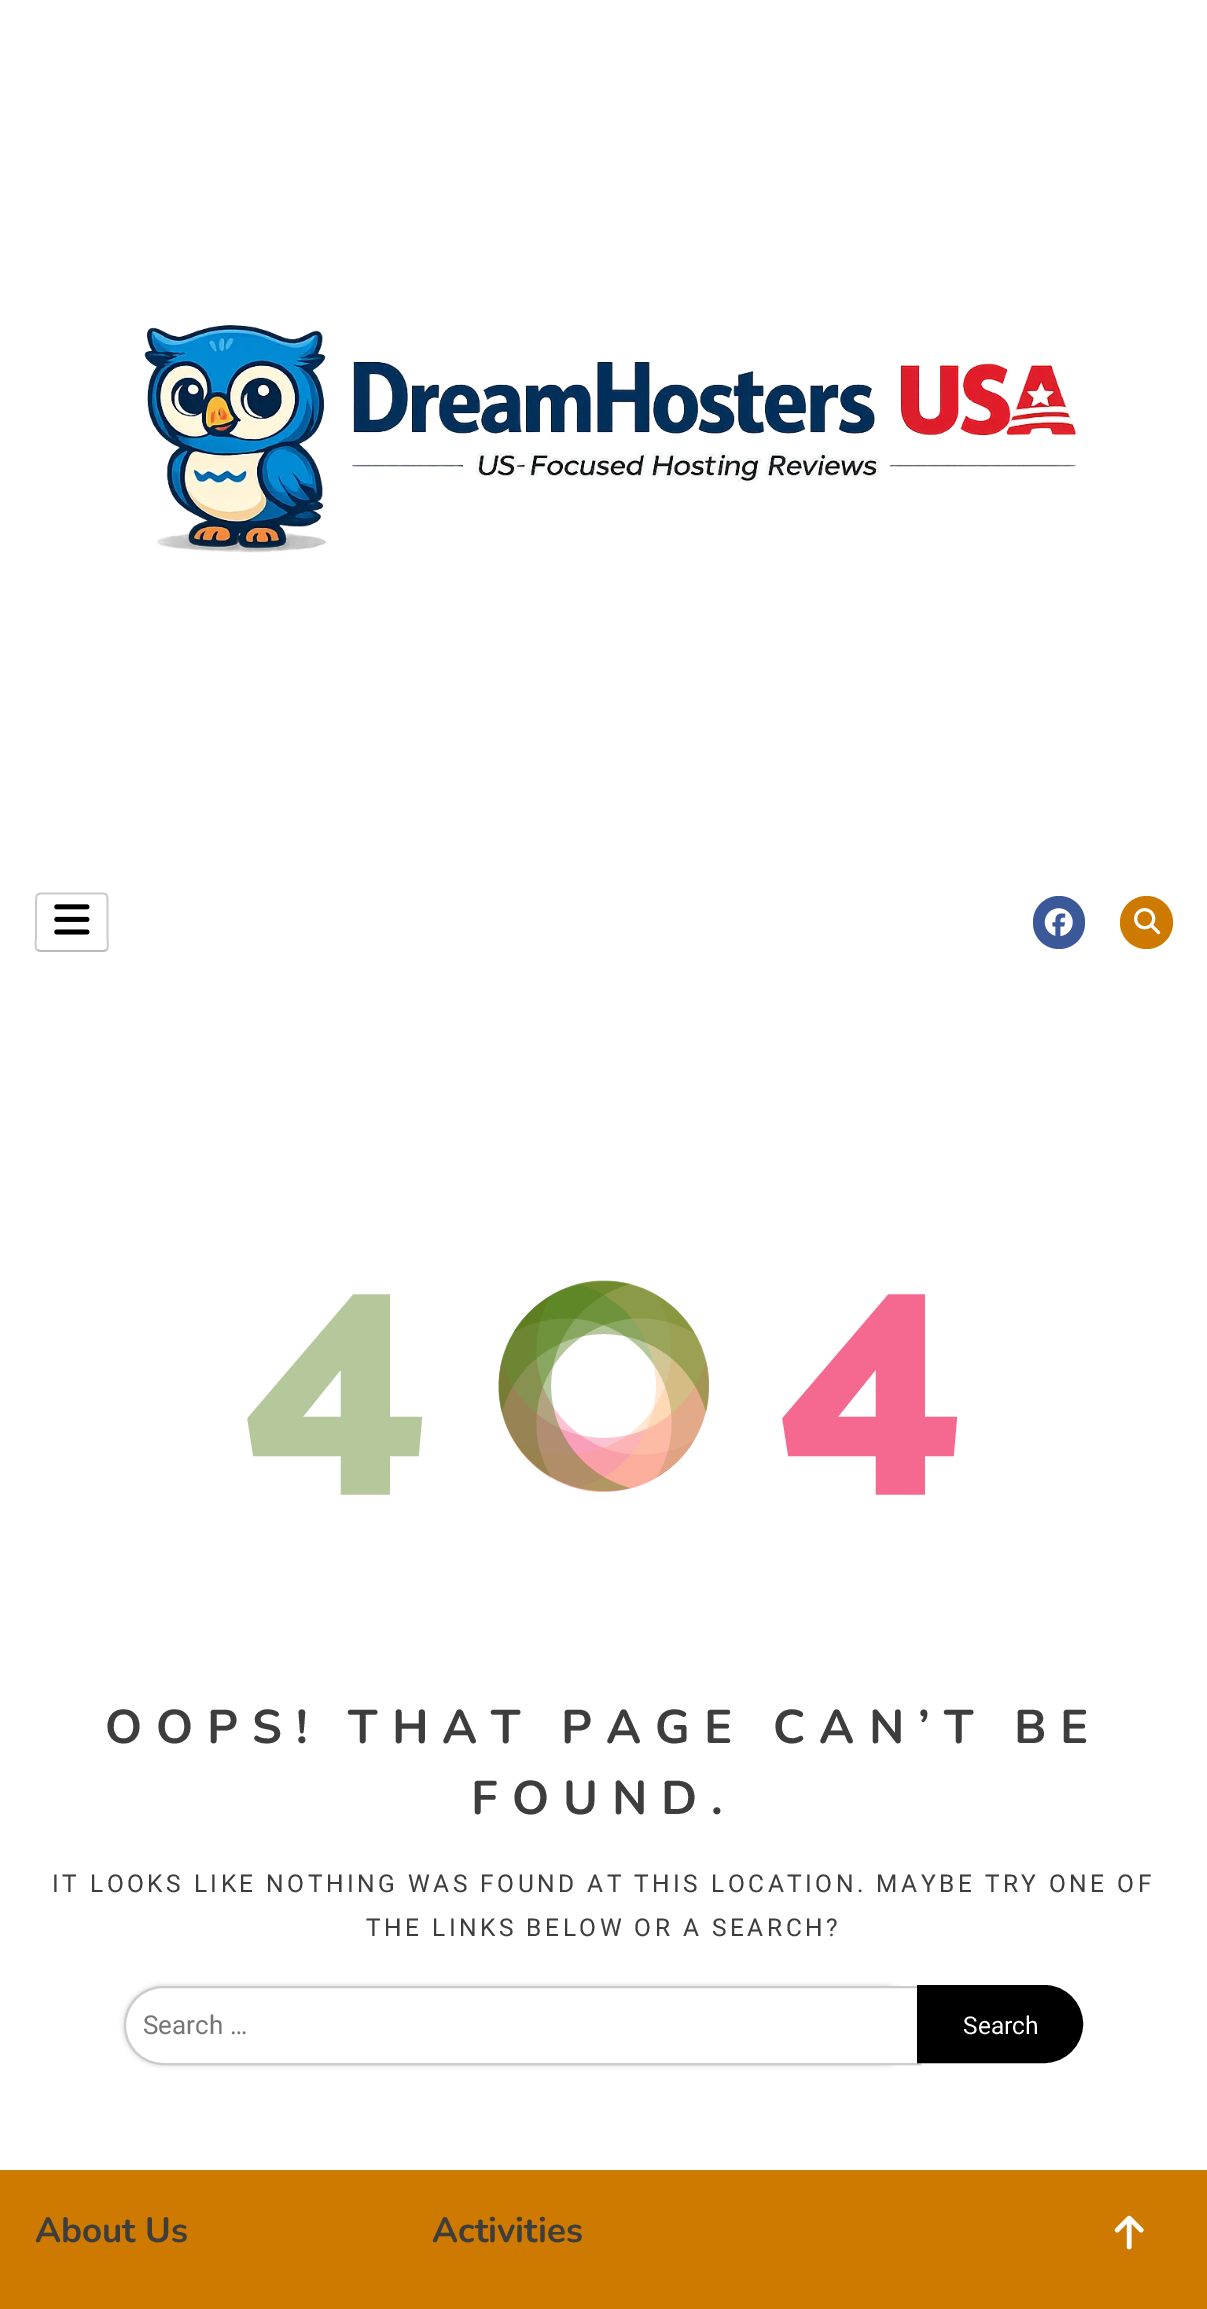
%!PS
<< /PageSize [1207 2309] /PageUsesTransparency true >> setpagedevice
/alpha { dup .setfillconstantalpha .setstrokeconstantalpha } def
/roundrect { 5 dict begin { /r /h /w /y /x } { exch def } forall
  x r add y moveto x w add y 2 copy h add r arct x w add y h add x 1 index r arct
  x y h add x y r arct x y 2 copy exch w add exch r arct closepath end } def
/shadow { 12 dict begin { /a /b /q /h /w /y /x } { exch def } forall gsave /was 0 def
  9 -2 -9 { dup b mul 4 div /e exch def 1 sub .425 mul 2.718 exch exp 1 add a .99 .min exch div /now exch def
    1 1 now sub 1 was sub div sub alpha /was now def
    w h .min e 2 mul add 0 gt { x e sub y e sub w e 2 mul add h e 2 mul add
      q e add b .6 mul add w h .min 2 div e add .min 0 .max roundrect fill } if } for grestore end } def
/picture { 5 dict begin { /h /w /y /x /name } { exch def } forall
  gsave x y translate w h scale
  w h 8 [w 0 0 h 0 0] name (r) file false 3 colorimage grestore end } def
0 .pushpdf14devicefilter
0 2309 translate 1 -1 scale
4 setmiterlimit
1 setgray
0 0 1207 2309 rectfill
(img1.rgb) 144 325 933 228 picture
0.733 setgray
1.8 setlinewidth
newpath 106.5 950 moveto 103.5 951 lineto 40 951 lineto 37 950 lineto stroke
0.8 setgray
newpath 37 950 moveto 34.5 947.5 36 940.5 36 938.5 curveto 36 906 lineto 36 891.5 35.5 893.5 51 893.5 curveto 93 893.5 lineto 108 893.5 107.5 891.5 107.5 906 curveto 107.5 938.5 lineto 107.5 940.5 109 947.5 106.5 950 curveto stroke
(img2.rgb) 54 904 36 31 picture
0.231 0.349 0.596 setrgbcolor
1033 896 52 53 26 roundrect fill
(img3.rgb) 1044 908 29 29 picture
0.808 0.475 0 setrgbcolor
newpath 1146.5 922.5 26.5 0 360 arc closepath fill
(img4.rgb) 1134 908 27 27 picture
/Catamaran-ExtraBold [315 0 0 -315 0 0] selectfont
0.71 0.784 0.612 setrgbcolor
244 1474 moveto (4) show
0.984 0.765 0.827 setrgbcolor
newpath 694 1440 moveto 654 1464 602 1459 567 1424 curveto 532 1389 527 1336 551 1296 curveto 477 1339 483 1451 564 1484 curveto 583 1492 604 1494 624 1490 curveto 653 1484 679 1466 694 1440 curveto closepath fill
0.4 alpha
1 0.769 0.549 setrgbcolor
newpath 678 1312 moveto 672 1306 665 1301 657 1296 curveto 681 1337 675 1390 641 1424 curveto 607 1458 554 1464 514 1441 curveto 518 1448 523 1455 530 1461 curveto 571 1502 637 1502 678 1461 curveto 719 1420 719 1353 678 1312 curveto closepath fill
0.275 0.459 0.027 setrgbcolor
newpath 641 1349 moveto 676 1384 681 1437 657 1477 curveto 731 1433 724 1322 643 1289 curveto 625 1282 604 1280 584 1284 curveto 555 1289 529 1307 514 1332 curveto 554 1309 607 1315 641 1349 curveto closepath fill
newpath 678 1312 moveto 637 1271 571 1271 530 1312 curveto 488 1353 488 1420 530 1461 curveto 536 1467 543 1473 551 1477 curveto 527 1437 532 1384 567 1349 curveto 602 1314 654 1309 694 1333 curveto 689 1325 684 1319 678 1312 curveto closepath fill
0.961 0.412 0.569 setrgbcolor
newpath 502 1360 moveto 481 1443 564 1517 645 1483 curveto 664 1475 680 1461 691 1445 curveto 708 1420 713 1389 706 1360 curveto 694 1405 653 1438 604 1438 curveto 555 1438 514 1405 502 1360 curveto closepath fill
1 0.769 0.549 setrgbcolor
newpath 604 1281 moveto 595 1281 586 1282 578 1284 curveto 623 1296 656 1337 656 1386 curveto 656 1435 623 1476 578 1488 curveto 586 1490 595 1491 604 1491 curveto 662 1491 709 1444 709 1386 curveto 709 1328 662 1281 604 1281 curveto closepath fill
0.275 0.459 0.027 setrgbcolor
newpath 604 1334 moveto 653 1334 694 1367 706 1412 curveto 713 1383 708 1352 691 1327 curveto 680 1311 664 1297 645 1289 curveto 564 1255 481 1329 502 1412 curveto 514 1367 555 1334 604 1334 curveto closepath fill
newpath 604 1281 moveto 546 1281 499 1328 499 1386 curveto 499 1444 546 1491 604 1491 curveto 613 1491 622 1490 630 1488 curveto 585 1476 551 1435 551 1386 curveto 551 1337 585 1296 630 1284 curveto 622 1282 613 1281 604 1281 curveto closepath fill
1 alpha
0.961 0.412 0.569 setrgbcolor
779 1474 moveto (4) show
/Nunito-Bold [47.25 0 0 -47.25 0 0] selectfont
0.239 setgray
105 1743 moveto 14 0 (OOPS! THAT PAGE CAN’T BE) ashow
471 1814 moveto 14 0 (FOUND.) ashow
/Roboto-Regular [24.5 0 0 -24.5 0 0] selectfont
52 1892 moveto 3.5 0 (IT LOOKS LIKE NOTHING WAS FOUND AT THIS LOCATION. MAYBE TRY ONE OF) ashow
366 1936 moveto 3.5 0 (THE LINKS BELOW OR A SEARCH?) ashow
0.02 setgray
124 1986 797 79 39.5 2.5 0.19 shadow
1 setgray
newpath 163.5 1987 moveto 920 1987 lineto 920 2064 lineto 163.5 2064 lineto 142 2064 125 2047 125 2025.5 curveto 125 2004 142 1987 163.5 1987 curveto closepath gsave fill grestore
0.8 setgray
2 setlinewidth
stroke
/Roboto-Regular [26 0 0 -26 0 0] selectfont
0.459 setgray
143 2034 moveto (Search …) show
0 setgray
newpath 918 1986 moveto 1044 1986 lineto 1065 1986 1082 2003 1082 2024 curveto 1082 2045 1065 2062 1044 2062 curveto 918 2062 lineto closepath gsave fill grestore
stroke
/Roboto-Regular [24.5 0 0 -24.5 0 0] selectfont
1 setgray
963 2034 moveto (Search) show
0.808 0.475 0 setrgbcolor
0 2170 1207 139 rectfill
/Nunito-Bold [35 0 0 -35 0 0] selectfont
0.239 setgray
35 2242 moveto (About Us) show
432 2242 moveto (Activities) show
(img5.rgb) 1114 2215 30 35 picture
.poppdf14devicefilter showpage
